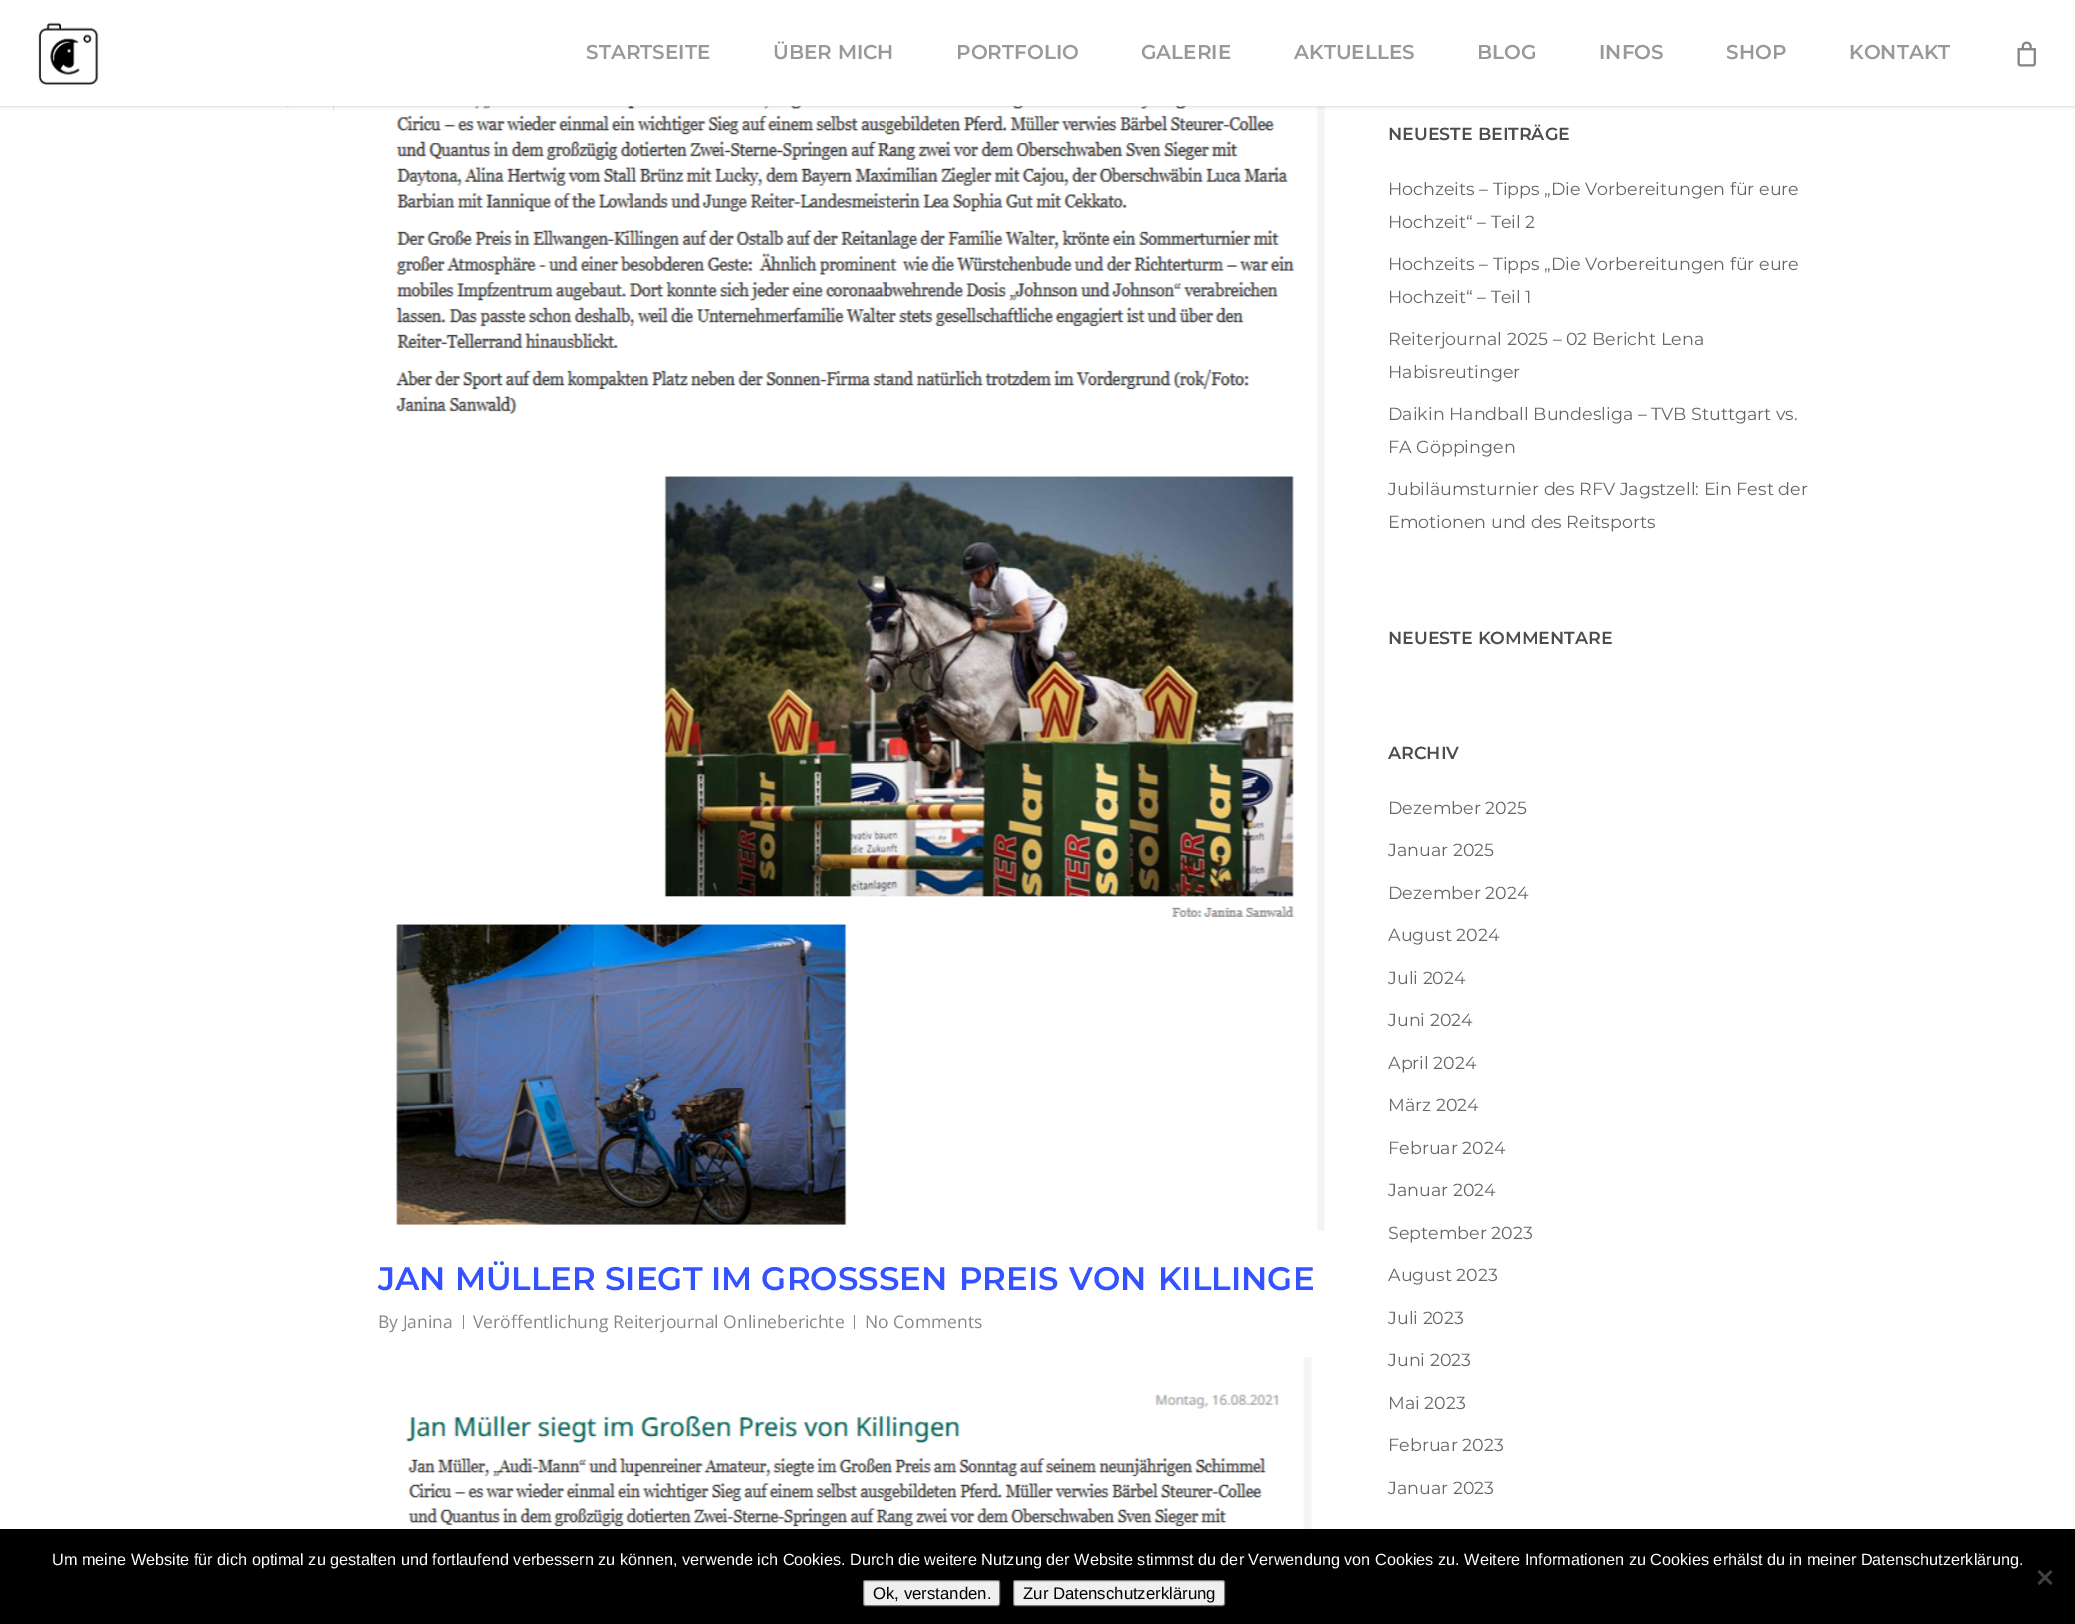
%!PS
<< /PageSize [2075 1624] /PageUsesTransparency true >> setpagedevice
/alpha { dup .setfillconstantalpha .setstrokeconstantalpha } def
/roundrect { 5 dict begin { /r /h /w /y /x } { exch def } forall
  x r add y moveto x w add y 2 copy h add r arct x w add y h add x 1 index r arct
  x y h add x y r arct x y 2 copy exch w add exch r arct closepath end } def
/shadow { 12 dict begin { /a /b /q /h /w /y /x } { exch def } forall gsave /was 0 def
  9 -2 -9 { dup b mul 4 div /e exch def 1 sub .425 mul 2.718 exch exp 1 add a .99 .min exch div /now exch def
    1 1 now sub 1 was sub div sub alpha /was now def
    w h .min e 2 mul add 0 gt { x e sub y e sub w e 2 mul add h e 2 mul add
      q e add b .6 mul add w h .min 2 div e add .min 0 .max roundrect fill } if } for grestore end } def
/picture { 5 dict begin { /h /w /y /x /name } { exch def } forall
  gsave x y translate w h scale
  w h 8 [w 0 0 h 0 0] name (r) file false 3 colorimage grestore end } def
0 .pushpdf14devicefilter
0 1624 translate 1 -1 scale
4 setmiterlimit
1 setgray
0 0 2075 1624 rectfill
0.902 setgray
333 106 1 5 rectfill
(img3.rgb) 286 106 3 1 picture
(img4.rgb) 393 106 932 1125 picture
0 setgray
0 -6 2075 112 0 2 0.22 shadow
1 setgray
0 0 2075 106 rectfill
(img1.rgb) 38 22 61 63 picture
/Montserrat-SemiBold [20 0 0 -20 0 0] selectfont
0.6 setgray
586 59 moveto (STARTSEITE) show
773 59 moveto (ÜBER MICH) show
956 59 moveto (PORTFOLIO) show
1141 59 moveto (GALERIE) show
1294 59 moveto (AKTUELLES) show
1477 59 moveto (BLOG) show
1599 59 moveto (INFOS) show
1726 59 moveto (SHOP) show
1849 59 moveto (KONTAKT) show
(img2.rgb) 2017 41 19 26 picture
/Montserrat-SemiBold [32.5 0 0 -32.5 0 0] selectfont
0.204 0.322 1 setrgbcolor
378 1290 moveto (JAN MÜLLER SIEGT IM GROSS) show
879 1290 moveto 2 0 32 (SEN PREIS VON KILLINGE) widthshow
/OpenSans-Regular [17.5 0 0 -17.5 0 0] selectfont
0.533 setgray
378 1328 moveto (By Janina) show
463 1315 1 14 rectfill
473 1328 moveto (Veröffentlichung Reiterjournal Onlineberichte) show
854 1315 1 14 rectfill
865 1328 moveto (No Comments) show
(img5.rgb) 405 1357 907 172 picture
/Montserrat-SemiBold [17.5 0 0 -17.5 0 0] selectfont
0.302 setgray
1388 140 moveto (NEUESTE BEITRÄGE) show
/Montserrat-Regular [17.5 0 0 -17.5 0 0] selectfont
0.404 setgray
1388 195 moveto (Hochzeits – Tipps „Die Vorbereitungen für eure) show
1388 228 moveto (Hochzeit“ – Teil 2) show
1388 270 moveto (Hochzeits – Tipps „Die Vorbereitungen für eure) show
1388 303 moveto (Hochzeit“ – Teil 1) show
1388 345 moveto (Reiterjournal 2025 – 02 Bericht Lena) show
1388 378 moveto (Habisreutinger) show
1388 420 moveto (Daikin Handball Bundesliga – TVB Stuttgart vs.) show
1388 453 moveto (FA Göppingen) show
1388 495 moveto (Jubiläumsturnier des RFV Jagstzell: Ein Fest der) show
1388 528 moveto (Emotionen und des Reitsports) show
/Montserrat-SemiBold [17.5 0 0 -17.5 0 0] selectfont
0.302 setgray
1388 644 moveto (NEUESTE KOMMENTARE) show
1388 759 moveto (ARCHIV) show
/Montserrat-Regular [17.5 0 0 -17.5 0 0] selectfont
0.404 setgray
1388 814 moveto (Dezember 2025) show
1388 856 moveto (Januar 2025) show
1388 899 moveto (Dezember 2024) show
1388 941 moveto (August 2024) show
1388 984 moveto (Juli 2024) show
1388 1026 moveto (Juni 2024) show
1388 1069 moveto (April 2024) show
1388 1111 moveto (März 2024) show
1388 1154 moveto (Februar 2024) show
1388 1196 moveto (Januar 2024) show
1388 1239 moveto (September 2023) show
1388 1281 moveto (August 2023) show
1388 1324 moveto (Juli 2023) show
1388 1366 moveto (Juni 2023) show
1388 1409 moveto (Mai 2023) show
1388 1451 moveto (Februar 2023) show
1388 1494 moveto (Januar 2023) show
0 setgray
0 1529 2075 95 rectfill
/LiberationSans-Regular [16.25 0 0 -16.25 0 0] selectfont
1 setgray
52 1565 moveto (Um meine Website für dich optimal zu gestalten und fortlaufend verbessern zu können, verwende ich Cookies. Durch die weitere Nutzung der Website stimmst du der Verwendung von Cookies zu. Weitere Informationen zu Cookies erhälst du in meiner Datenschutzerklärung.) show
0.251 setgray
newpath 2050.5 1570 moveto 2052.5 1572 lineto 2039.5 1585 lineto 2037.5 1583 lineto closepath fill
newpath 2037.5 1572 moveto 2039.5 1570 lineto 2052.5 1583 lineto 2050.5 1585 lineto closepath fill
0.937 setgray
863.5 1580.5 136 25 2 roundrect gsave fill grestore
0.463 setgray
stroke
/LiberationSans-Regular [16.75 0 0 -16.75 0 0] selectfont
0 setgray
873 1599 moveto (Ok, verstanden.) show
0.937 setgray
1013.5 1580.5 211 25 2 roundrect gsave fill grestore
0.463 setgray
stroke
0 setgray
1023 1599 moveto (Zur Datenschutzerklärung) show
.poppdf14devicefilter showpage
